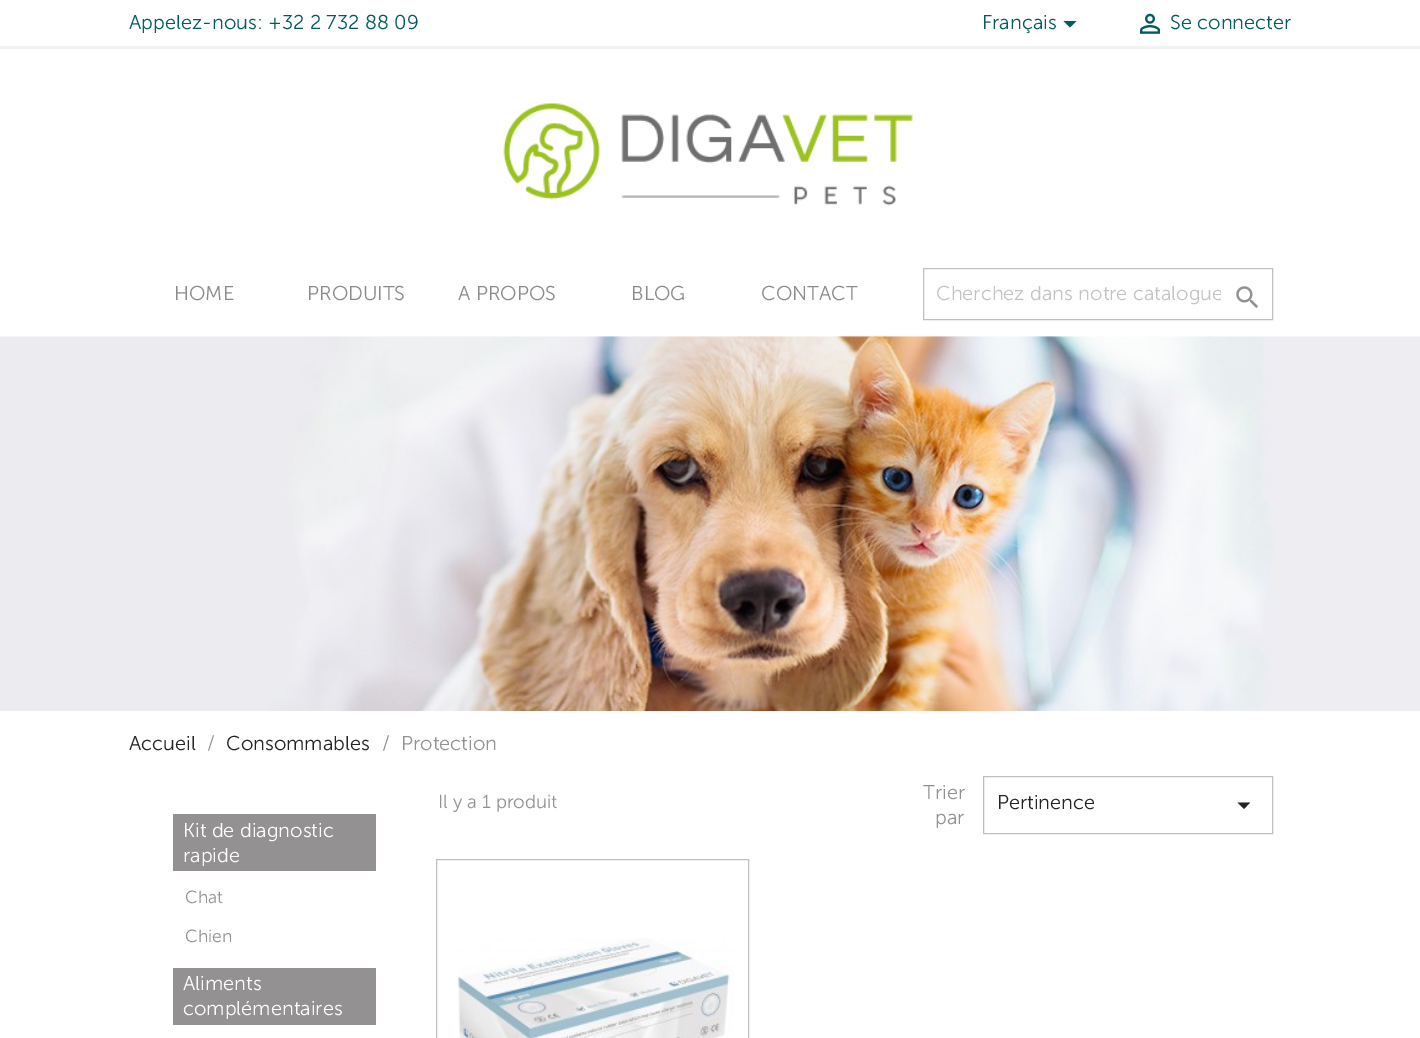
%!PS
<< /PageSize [1420 1038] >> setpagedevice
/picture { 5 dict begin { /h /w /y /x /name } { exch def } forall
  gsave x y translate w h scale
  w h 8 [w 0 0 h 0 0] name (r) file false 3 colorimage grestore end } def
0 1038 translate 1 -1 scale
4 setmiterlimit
1 setgray
0 0 1420 1038 rectfill
0.945 setgray
0 46 1420 3 rectfill
/MuseoSans-Light [20 0 0 -20 0 0] selectfont
0 0.361 0.369 setrgbcolor
129 29 moveto (Appelez-nous: +32 2 732 88 09) show
982 29 moveto (Français) show
newpath 1063.5 21 moveto 1076.5 21 lineto 1070 27.5 lineto closepath fill
(img1.rgb) 1140 13 20 21 picture
1170 29 moveto (Se connecter) show
(img2.rgb) 503 103 410 103 picture
0.541 setgray
174 300 moveto (HOME) show
307 300 moveto (PRODUITS) show
458 300 moveto (A PROPOS) show
631 300 moveto (BLOG) show
761 300 moveto (CONTACT) show
0.749 setgray
923.5 268.5 349 51 rectstroke
gsave
936 281 285 24 rectclip
0.773 0.769 0.769 setrgbcolor
936 300 moveto (Cherchez dans notre catalogue) show
grestore
(img3.rgb) 1236 286 22 22 picture
(img4.rgb) 0 336 1420 376 picture
0.137 setgray
129 750 moveto (Accueil) show
0.576 0.569 0.569 setrgbcolor
207 750 moveto (/) show
0.137 setgray
226 750 moveto (Consommables) show
0.576 0.569 0.569 setrgbcolor
382 750 moveto (/) show
401 750 moveto (Protection) show
/MuseoSans-Light [18.75 0 0 -18.75 0 0] selectfont
438 808 moveto (Il y a 1 produit) show
/MuseoSans-Light [20 0 0 -20 0 0] selectfont
923 799 moveto (Trier) show
935 824 moveto (par) show
0.749 setgray
983.5 776.5 289 57 rectstroke
0.137 setgray
997 809 moveto (Pertinence) show
newpath 1237.5 802.5 moveto 1250 802.5 lineto 1244 809 lineto closepath fill
0.749 setgray
436.5 859.5 312 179 rectstroke
(img5.rgb) 457 938 277 100 picture
0.576 0.569 0.569 setrgbcolor
173 814 203 57 rectfill
1 setgray
183 837 moveto (Kit de diagnostic) show
183 862 moveto (rapide) show
/MuseoSans-Light [17.5 0 0 -17.5 0 0] selectfont
0.576 0.569 0.569 setrgbcolor
185 903 moveto (Chat) show
185 942 moveto (Chien) show
173 968 203 57 rectfill
/MuseoSans-Light [20 0 0 -20 0 0] selectfont
1 setgray
183 990 moveto (Aliments) show
183 1015 moveto (complémentaires) show
showpage
